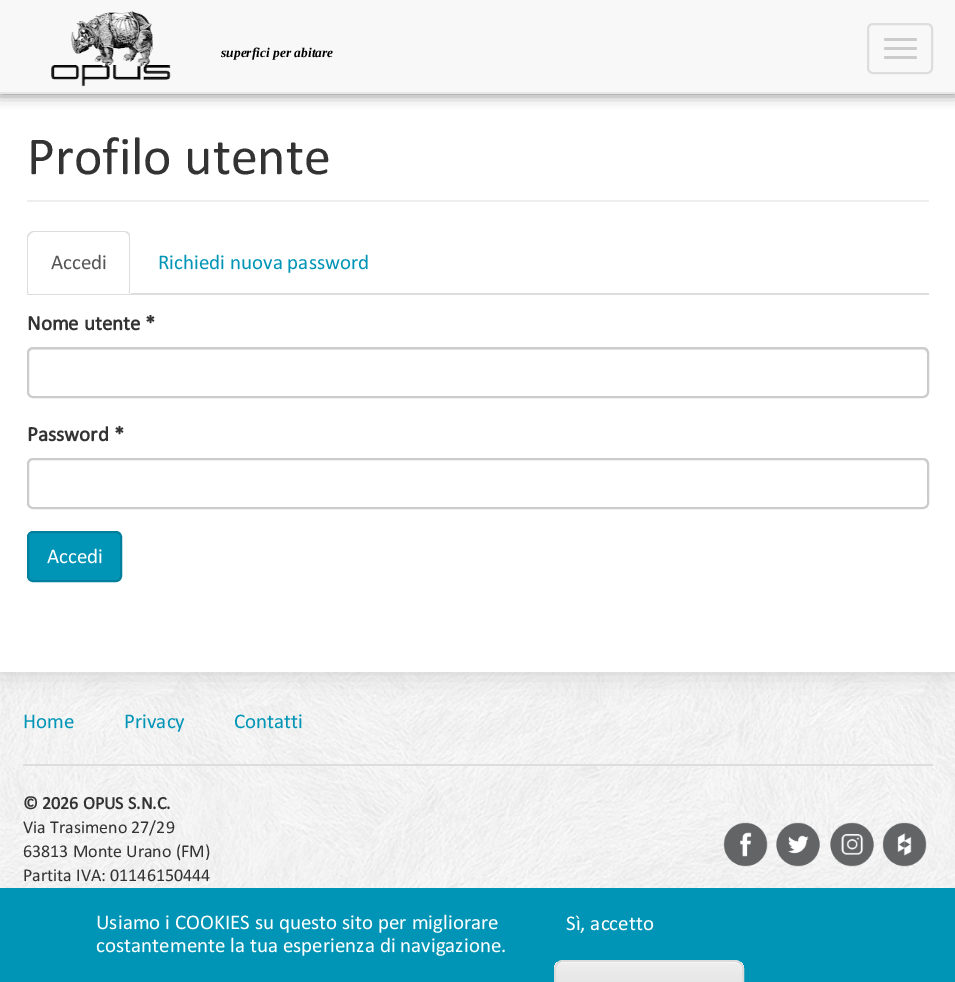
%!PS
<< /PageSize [955 982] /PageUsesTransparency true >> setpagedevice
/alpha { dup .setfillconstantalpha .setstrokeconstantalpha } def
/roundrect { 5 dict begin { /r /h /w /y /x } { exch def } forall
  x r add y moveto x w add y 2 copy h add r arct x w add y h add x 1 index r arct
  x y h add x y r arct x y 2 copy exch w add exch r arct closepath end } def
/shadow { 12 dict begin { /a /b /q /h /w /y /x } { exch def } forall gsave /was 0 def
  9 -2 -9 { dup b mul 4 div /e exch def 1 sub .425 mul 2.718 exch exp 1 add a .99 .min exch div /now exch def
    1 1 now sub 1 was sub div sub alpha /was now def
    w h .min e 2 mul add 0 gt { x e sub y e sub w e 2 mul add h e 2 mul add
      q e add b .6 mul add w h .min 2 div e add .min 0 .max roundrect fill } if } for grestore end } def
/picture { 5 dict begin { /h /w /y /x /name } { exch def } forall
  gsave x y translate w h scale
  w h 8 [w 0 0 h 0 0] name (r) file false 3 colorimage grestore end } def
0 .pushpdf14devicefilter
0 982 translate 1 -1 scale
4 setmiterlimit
1 setgray
0 0 955 982 rectfill
(img1.rgb) 0 672 955 216 picture
0.8 setgray
0 0 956 672 0 13.5 1 shadow
1 setgray
0 94 955 578 rectfill
0.333 setgray
0 0 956 93 0 7 1 shadow
0.973 setgray
0 0 955 92 rectfill
0.906 setgray
0 92 955 2 rectfill
(img2.rgb) 51 11 120 76 picture
/LiberationSerif-BoldItalic [13.5 0 0 -13.5 0 0] selectfont
0 setgray
221 57 moveto (superfici per abitare) show
0.867 setgray
2 setlinewidth
868 24 64 49 5 roundrect stroke
0.8 setgray
884 38 33 3 1.5 roundrect fill
884 47 33 3 1.5 roundrect fill
884 56 33 3 1.5 roundrect fill
0.933 setgray
27 200 902 2 rectfill
/Calibri-Regular [54 0 0 -54 0 0] selectfont
0.2 setgray
27 174 moveto (Profilo utente) show
0.867 setgray
27 293 902 2 rectfill
1 setgray
newpath 33 231 moveto 125 231 lineto 128.5 231 131 233.5 131 237 curveto 131 294 lineto 27 294 lineto 27 237 lineto 27 233.5 29.5 231 33 231 curveto closepath fill
0.867 setgray
newpath 33 231 moveto 32 231 30 232 29 233 curveto 30 234 lineto 33 232 lineto 125 232 lineto 128 234 lineto 129 233 lineto 128 232 126 231 124 231 curveto closepath fill
newpath 129 233 moveto 130 234 130 236 130 237 curveto 130 294 lineto 128 292 lineto 129 292 lineto 129 237 lineto 129 236 129 235 128 234 curveto closepath fill
newpath 27 294 moveto 29 292 lineto 28 292 lineto 28 237 lineto 30 234 lineto 29 233 lineto 28 234 27 236 27 237 curveto closepath fill
/Calibri-Regular [21 0 0 -21 0 0] selectfont
0.333 setgray
51 269 moveto (Accedi) show
0 0.584 0.714 setrgbcolor
158 269 moveto (Richiedi nuova password) show
/Calibri-Bold [21 0 0 -21 0 0] selectfont
0.2 setgray
27 330 moveto (Nome utente *) show
0.925 setgray
newpath 33 350 moveto 922 350 lineto 925 350 927 352 927 354 curveto 927 353 lineto 927 350 925 348 922 348 curveto 34 348 lineto 32 348 30 350 29 352 curveto 30 351 32 350 33 350 curveto closepath fill
0.8 setgray
28 348 900 49 5 roundrect stroke
0.2 setgray
27 441 moveto (Password *) show
0.925 setgray
newpath 33 460 moveto 922 460 lineto 925 460 927 463 927 465 curveto 927 464 lineto 927 461 925 459 922 459 curveto 34 459 lineto 32 459 30 460 29 462 curveto 30 461 32 460 33 460 curveto closepath fill
0.8 setgray
28 459 900 49 5 roundrect stroke
0 0.584 0.714 setrgbcolor
28 532 93 49 5 roundrect gsave fill grestore
0 0.502 0.616 setrgbcolor
stroke
/Calibri-Regular [21 0 0 -21 0 0] selectfont
1 setgray
47 563 moveto (Accedi) show
0.867 setgray
23 764 910 2 rectfill
0 0.584 0.714 setrgbcolor
23 728 moveto (Home) show
124 728 moveto (Privacy) show
234 728 moveto (Contatti) show
/Calibri-Bold [18 0 0 -18 0 0] selectfont
0.2 setgray
23 809 moveto (© 2026 OPUS S.N.C.) show
/Calibri-Regular [18 0 0 -18 0 0] selectfont
23 833 moveto (Via Trasimeno 27/29) show
23 857 moveto (63813 Monte Urano \(FM\)) show
23 881 moveto (Partita IVA: 01146150444) show
(img3.rgb) 723 822 45 45 picture
(img4.rgb) 776 822 44 45 picture
(img5.rgb) 830 822 44 45 picture
(img6.rgb) 882 822 45 45 picture
0 0.584 0.714 setrgbcolor
0 888 955 94 rectfill
/Calibri-Regular [21 0 0 -21 0 0] selectfont
1 setgray
96 929 moveto (Usiamo i COOKIES su questo sito per migliorare) show
96 952 moveto (costantemente la tua esperienza di navigazione.) show
566 930 moveto (Sì, accetto) show
gsave
554 960 190 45 9 roundrect clip newpath
gsave newpath 554 962 moveto 744 962 lineto 744 982 lineto 554 982 lineto closepath clip newpath
<< /ShadingType 2 /ColorSpace /DeviceRGB /Coords [649 962 649 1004] /Extend [true true] /Function << /FunctionType 3 /Domain [0 1] /Functions [<< /FunctionType 2 /Domain [0 1] /C0 [0.929 0.929 0.929] /C1 [0.929 0.929 0.929] /N 1 >> << /FunctionType 2 /Domain [0 1] /C0 [0.929 0.929 0.929] /C1 [0.875 0.875 0.875] /N 1 >>] /Bounds [0.05] /Encode [0 1 0 1] >> >> shfill grestore
grestore
newpath 562 963 moveto 735 963 lineto 739 963 742 966 742 970 curveto 742 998 lineto 742 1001 lineto 742 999 743 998 743 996 curveto 743 970 lineto 743 966 739 962 735 962 curveto 563 962 lineto 559 962 555 966 555 970 curveto 555 966 558 963 562 963 curveto closepath fill
0.863 setgray
555 961 188 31 8 roundrect stroke
.poppdf14devicefilter showpage
